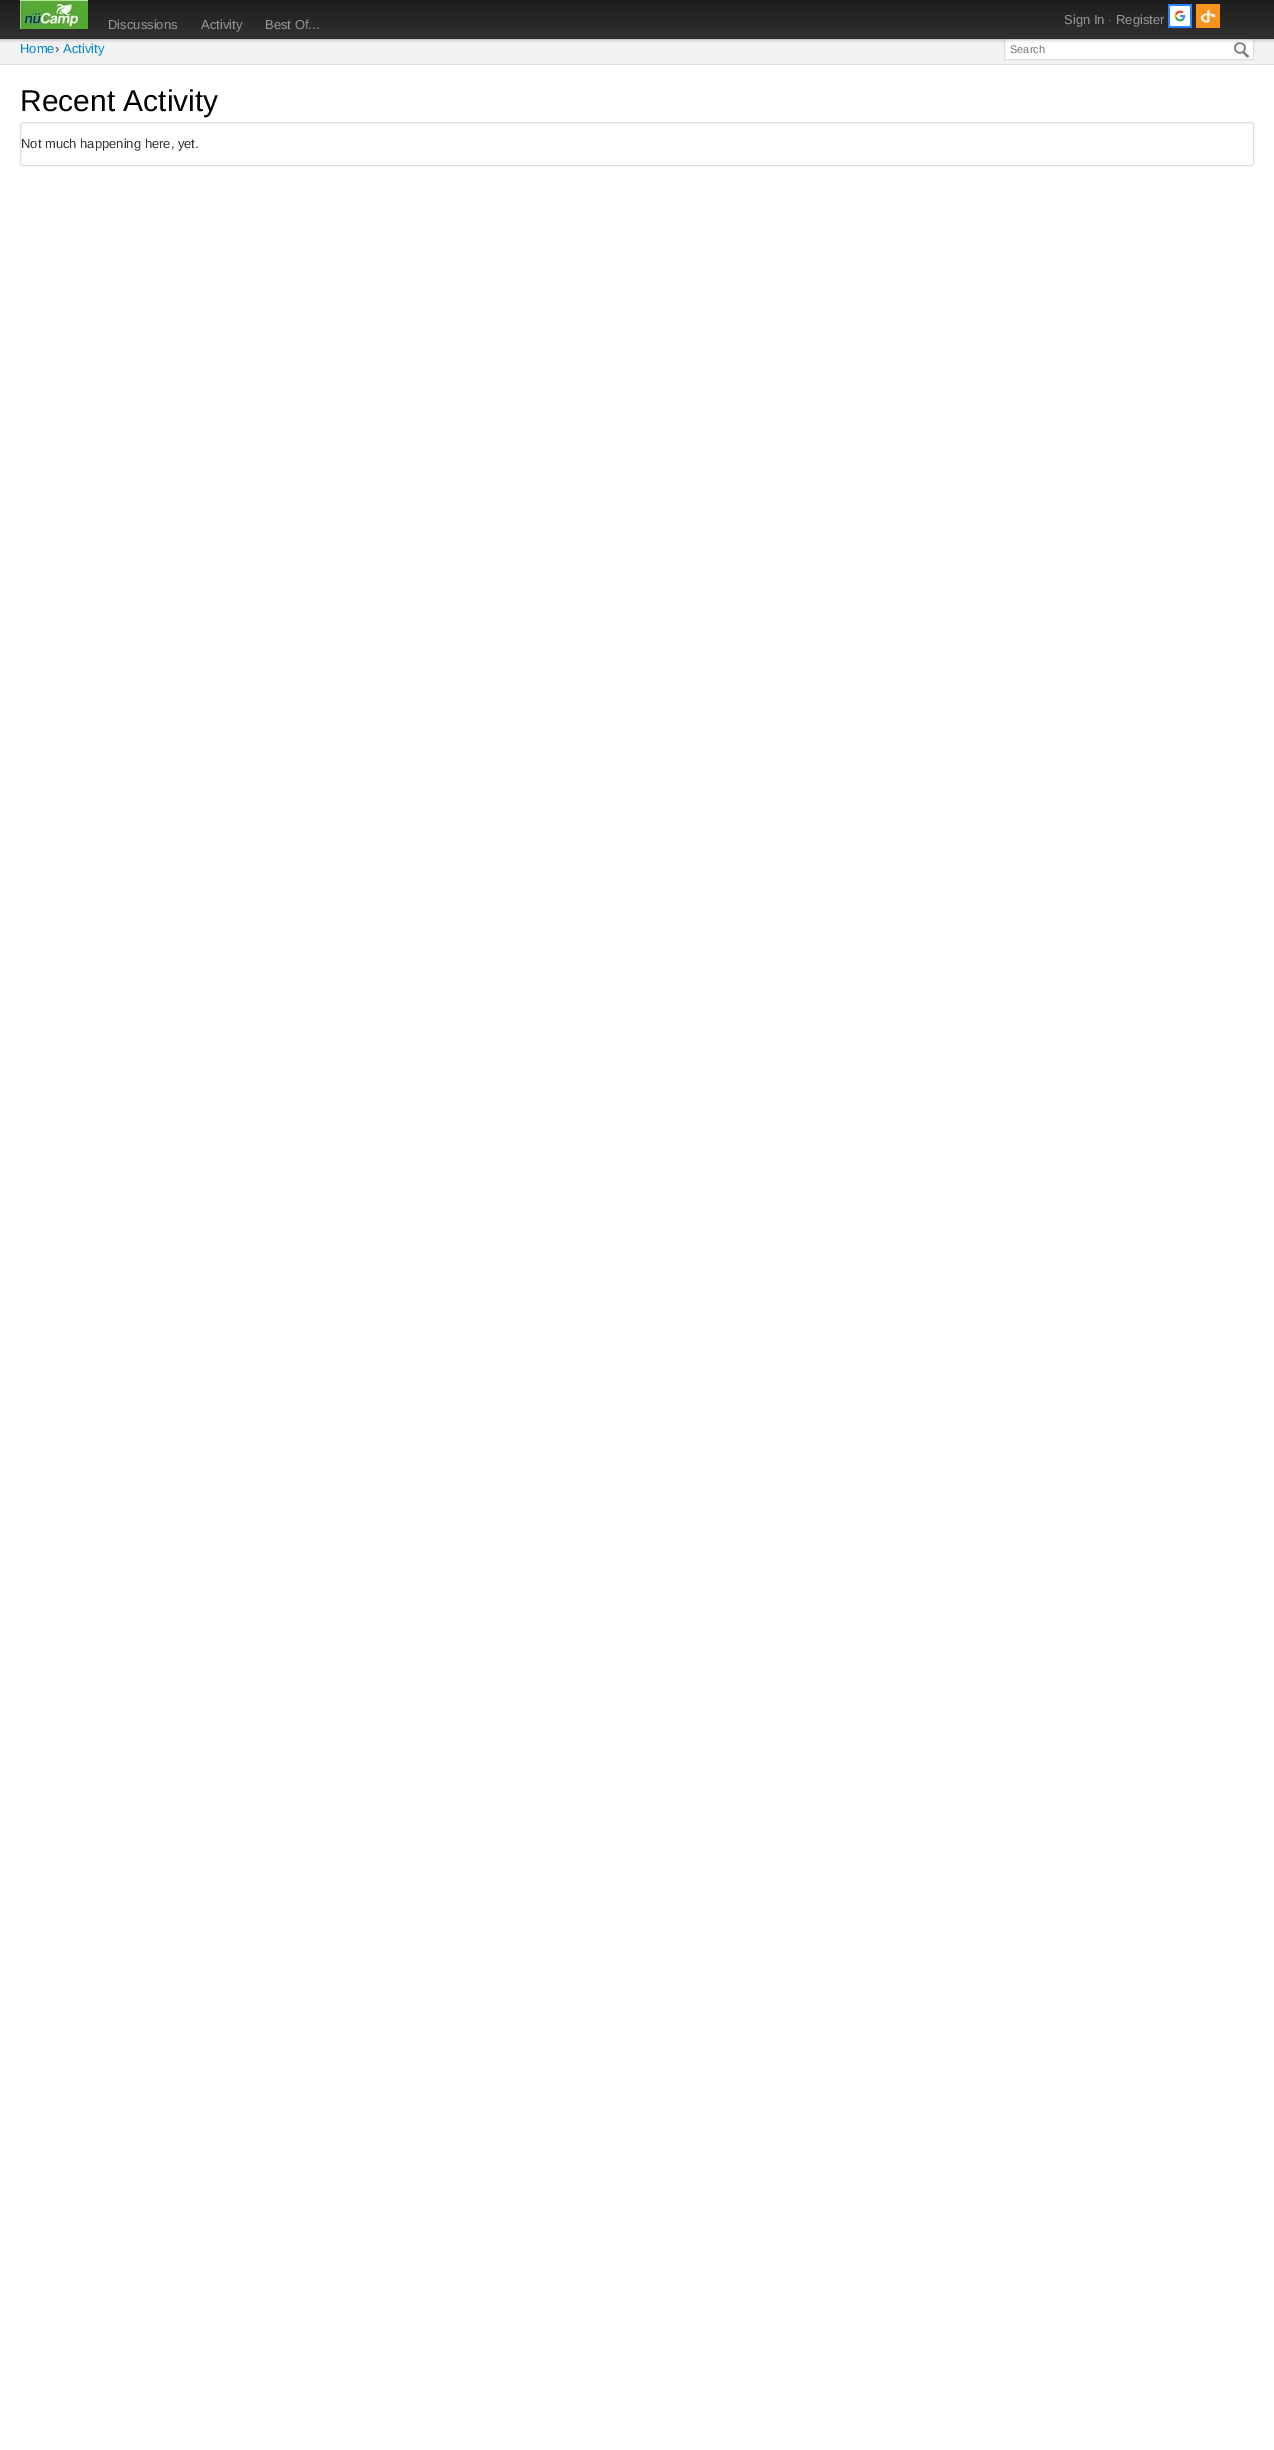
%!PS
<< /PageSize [1274 2450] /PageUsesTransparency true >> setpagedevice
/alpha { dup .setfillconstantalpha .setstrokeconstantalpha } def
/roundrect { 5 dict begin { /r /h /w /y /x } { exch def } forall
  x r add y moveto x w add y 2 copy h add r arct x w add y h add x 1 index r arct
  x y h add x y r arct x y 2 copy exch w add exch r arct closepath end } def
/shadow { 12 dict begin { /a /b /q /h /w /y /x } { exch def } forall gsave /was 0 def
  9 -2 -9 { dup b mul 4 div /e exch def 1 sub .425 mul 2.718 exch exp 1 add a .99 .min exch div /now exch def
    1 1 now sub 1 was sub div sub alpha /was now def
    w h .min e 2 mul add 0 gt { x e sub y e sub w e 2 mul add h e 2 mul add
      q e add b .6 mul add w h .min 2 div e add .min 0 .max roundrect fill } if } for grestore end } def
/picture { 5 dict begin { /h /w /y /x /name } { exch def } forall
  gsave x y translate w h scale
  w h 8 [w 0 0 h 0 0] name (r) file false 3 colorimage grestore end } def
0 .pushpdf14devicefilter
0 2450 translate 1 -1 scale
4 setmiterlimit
1 setgray
0 0 1274 2450 rectfill
0.949 setgray
0 39 1274 25 rectfill
1 setgray
newpath 1004.5 38.5 moveto 1253.5 38.5 lineto 1253.5 59.5 lineto 1004.5 59.5 lineto closepath gsave fill grestore
0.867 setgray
stroke
(img4.rgb) 1234 42 16 16 picture
0.2 alpha
1 setgray
newpath 1238 43 moveto 1248 43 lineto 1249 44 1250 45 1250 46 curveto 1250 41.5 1245.5 42 1242 42 curveto 1239.5 42 1236.5 41.5 1234.5 44 curveto 1233.5 45.5 1234 48 1234 50 curveto 1234 47 1234 43 1238 43 curveto closepath 1250 52 moveto 1250 55 lineto closepath eofill
1 alpha
0 setgray
0 1 1274 39 0 1.5 0.25 shadow
gsave newpath 0 0 moveto 1274 0 lineto 1274 38 lineto 0 38 lineto closepath clip newpath
<< /ShadingType 2 /ColorSpace /DeviceRGB /Coords [637 39 637 0] /Extend [true true] /Function << /FunctionType 2 /Domain [0 1] /C0 [0.196 0.196 0.196] /C1 [0.114 0.114 0.114] /N 1 >> >> shfill grestore
0.176 setgray
0 38 1274 1 rectfill
(img1.rgb) 20 0 68 29 picture
/LiberationSans-Regular [13 0 0 -13 0 0] selectfont
0.6 setgray
108 29 moveto (Discussions) show
201 29 moveto (Activity) show
265 29 moveto (Best Of...) show
1064 24 moveto (Sign In) show
0.459 setgray
1108 24 moveto (·) show
0.6 setgray
1116 24 moveto (Register) show
(img2.rgb) 1168 4 24 24 picture
0.969 0.573 0.11 setrgbcolor
1196 4 24 24 rectfill
(img3.rgb) 1200 9 16 14 picture
0.871 setgray
0 64 1274 1 rectfill
0 0.533 0.8 setrgbcolor
20 53 moveto (Home) show
0.2 setgray
55 53 moveto (›) show
0 0.533 0.8 setrgbcolor
63 53 moveto (Activity) show
/LiberationSans-Regular [11 0 0 -11 0 0] selectfont
0.459 setgray
1010 53 moveto (Search) show
/LiberationSans-Regular [30 0 0 -30 0 0] selectfont
0 setgray
20 111 moveto (Recent Activity) show
0.867 setgray
20.5 122.5 1233 43 2.5 roundrect stroke
/LiberationSans-Regular [13 0 0 -13 0 0] selectfont
0.2 setgray
21 148 moveto (Not much happening here, yet.) show
.poppdf14devicefilter showpage
